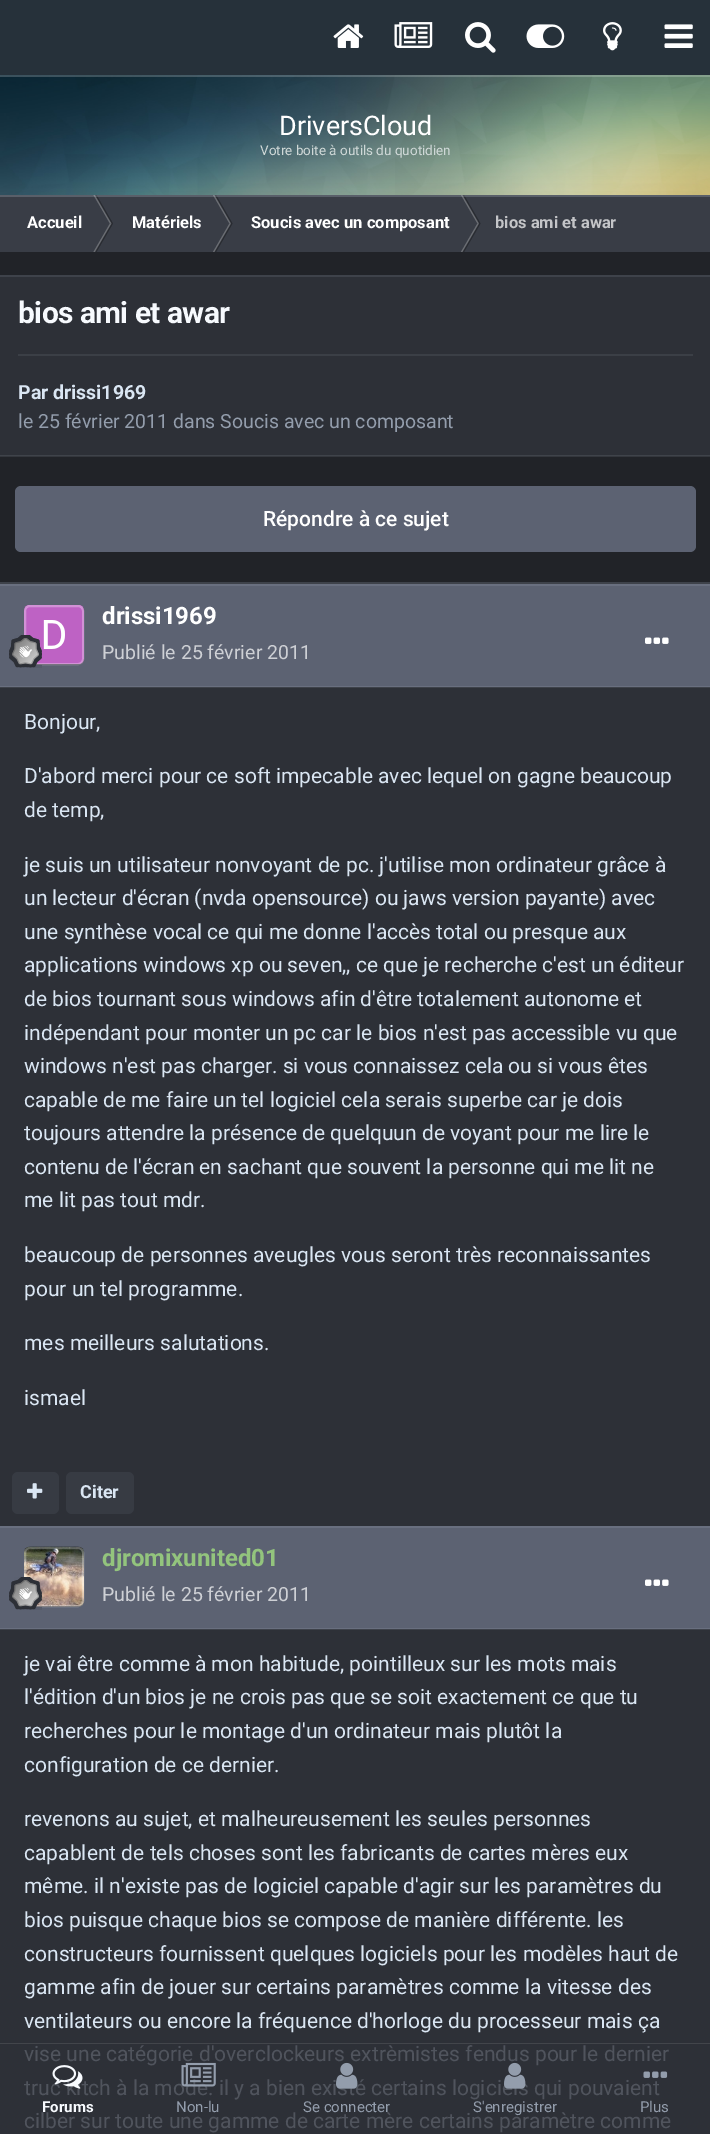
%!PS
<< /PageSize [710 2134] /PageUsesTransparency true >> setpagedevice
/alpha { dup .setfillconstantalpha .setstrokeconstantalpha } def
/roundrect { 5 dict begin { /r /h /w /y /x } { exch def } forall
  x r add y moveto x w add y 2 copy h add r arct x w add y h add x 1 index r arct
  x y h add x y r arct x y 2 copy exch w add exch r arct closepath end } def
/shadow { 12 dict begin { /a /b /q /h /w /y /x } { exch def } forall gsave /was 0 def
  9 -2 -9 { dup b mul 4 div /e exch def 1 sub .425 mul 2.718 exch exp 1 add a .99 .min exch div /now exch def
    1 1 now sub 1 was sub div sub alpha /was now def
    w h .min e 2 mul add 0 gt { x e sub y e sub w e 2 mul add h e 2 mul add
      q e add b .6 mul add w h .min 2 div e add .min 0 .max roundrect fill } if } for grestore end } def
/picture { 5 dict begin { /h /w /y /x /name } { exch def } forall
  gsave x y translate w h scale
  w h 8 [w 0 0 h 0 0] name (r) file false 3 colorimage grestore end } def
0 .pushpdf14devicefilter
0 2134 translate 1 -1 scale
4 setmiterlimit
1 setgray
0 0 710 2134 rectfill
(img7.rgb) 0 75 710 120 picture
0.2 alpha
0 75 710 2 rectfill
1 alpha
0.149 0.192 0.227 setrgbcolor
0 0 710 75 rectfill
(img1.rgb) 333 24 31 24 picture
(img2.rgb) 394 22 39 26 picture
(img3.rgb) 465 22 31 31 picture
(img4.rgb) 526 24 39 24 picture
(img5.rgb) 603 22 19 29 picture
(img6.rgb) 664 24 29 24 picture
/Roboto-Regular [27 0 0 -27 0 0] selectfont
1 setgray
279 135 moveto (DriversCloud) show
/Roboto-Regular [13.5 0 0 -13.5 0 0] selectfont
0.812 0.847 0.843 setrgbcolor
260 155 moveto (Votre boite à outils du quotidien) show
0 setgray
0 195 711 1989 5 15 0.06 shadow
0.129 0.137 0.157 setrgbcolor
0 252 710 330 rectfill
0.224 0.239 0.275 setrgbcolor
0 195 710 57 rectfill
0.42 0.431 0.455 setrgbcolor
newpath 93.5 195 moveto 95 195 lineto 111.5 223.5 lineto 110 223.5 lineto closepath fill
0.3 alpha
0 setgray
newpath 95 195 moveto 96.5 195 lineto 113 223.5 lineto 111.5 223.5 lineto closepath fill
1 alpha
0.42 0.431 0.455 setrgbcolor
newpath 213 195 moveto 214.5 195 lineto 231 223.5 lineto 229.5 223.5 lineto closepath fill
0.3 alpha
0 setgray
newpath 214.5 195 moveto 216 195 lineto 232.5 223.5 lineto 231 223.5 lineto closepath fill
1 alpha
0.42 0.431 0.455 setrgbcolor
newpath 461 195 moveto 462.5 195 lineto 479 223.5 lineto 477.5 223.5 lineto closepath fill
0.3 alpha
0 setgray
newpath 462.5 195 moveto 464 195 lineto 480.5 223.5 lineto 479 223.5 lineto closepath fill
0.2 alpha
0.855 0.902 0.953 setrgbcolor
0 195 710 2 rectfill
/Roboto-Bold [16.5 0 0 -16.5 0 0] selectfont
1 alpha
1 setgray
27 228 moveto (Accueil) show
0.42 0.431 0.455 setrgbcolor
newpath 93.5 252 moveto 95 252 lineto 111.5 223.5 lineto 110 223.5 lineto closepath fill
0.3 alpha
0 setgray
newpath 95 252 moveto 96.5 252 lineto 113 223.5 lineto 111.5 223.5 lineto closepath fill
1 alpha
1 setgray
132 228 moveto (Matériels) show
0.42 0.431 0.455 setrgbcolor
newpath 213 252 moveto 214.5 252 lineto 231 223.5 lineto 229.5 223.5 lineto closepath fill
0.3 alpha
0 setgray
newpath 214.5 252 moveto 216 252 lineto 232.5 223.5 lineto 231 223.5 lineto closepath fill
1 alpha
1 setgray
251 228 moveto (Soucis avec un composant) show
0.42 0.431 0.455 setrgbcolor
newpath 461 252 moveto 462.5 252 lineto 479 223.5 lineto 477.5 223.5 lineto closepath fill
0.3 alpha
0 setgray
newpath 462.5 252 moveto 464 252 lineto 480.5 223.5 lineto 479 223.5 lineto closepath fill
1 alpha
0.769 0.773 0.784 setrgbcolor
495 228 moveto (bios ami et awar) show
0.176 0.188 0.216 setrgbcolor
0 277 710 179 rectfill
0.243 0.259 0.29 setrgbcolor
0 275 710 2 rectfill
0.1 alpha
0.855 0.902 0.953 setrgbcolor
0 455 710 2 rectfill
/Roboto-Bold [30 0 0 -30 0 0] selectfont
1 alpha
0.969 0.98 0.996 setrgbcolor
18 323 moveto -0.6 0 (bios ami et awar) ashow
0.231 0.247 0.275 setrgbcolor
18 354 675 2 rectfill
/Roboto-Bold [19.5 0 0 -19.5 0 0] selectfont
0.855 0.902 0.953 setrgbcolor
18 399 moveto (Par drissi1969) show
/Roboto-Regular [19.5 0 0 -19.5 0 0] selectfont
0.576 0.616 0.675 setrgbcolor
18 428 moveto (le 25 février 2011 dans Soucis avec un composant) show
0.361 0.384 0.447 setrgbcolor
15 486 681 66 6 roundrect fill
/Roboto-Medium [21 0 0 -21 0 0] selectfont
1 setgray
263 526 moveto (Répondre à ce sujet) show
0.176 0.188 0.216 setrgbcolor
0 688 710 838 rectfill
0.243 0.259 0.29 setrgbcolor
0 687 710 1 rectfill
0 582 710 2 rectfill
0.361 0.384 0.447 setrgbcolor
0 586 710 100 rectfill
0.412 0.435 0.498 setrgbcolor
0 686 710 1 rectfill
0 584 710 2 rectfill
0.176 0.188 0.216 setrgbcolor
24 605 60 60 6 roundrect fill
(img8.rgb) 24 605 60 60 picture
0.3 alpha
1 setgray
2 setlinewidth
25 606 58 58 5 roundrect stroke
1 alpha
(img9.rgb) 9 635 33 33 picture
/Roboto-Bold [24 0 0 -24 0 0] selectfont
102 624 moveto (drissi1969) show
/Roboto-Regular [19.5 0 0 -19.5 0 0] selectfont
0.808 0.816 0.835 setrgbcolor
102 659 moveto (Publié le 25 février 2011) show
(img10.rgb) 645 637 24 7 picture
/Roboto-Regular [21 0 0 -21 0 0] selectfont
0.855 0.902 0.953 setrgbcolor
24 729 moveto (Bonjour,) show
24 783 moveto (D'abord merci pour ce soft impecable avec lequel on gagne beaucoup) show
24 817 moveto (de temp,) show
24 872 moveto (je suis un utilisateur nonvoyant de pc. j'utilise mon ordinateur grâce à) show
24 905 moveto (un lecteur d'écran \(nvda opensource\) ou jaws version payante\) avec) show
24 939 moveto (une synthèse vocal ce qui me donne l'accès total ou presque aux) show
24 972 moveto (applications windows xp ou seven,, ce que je recherche c'est un éditeur) show
24 1006 moveto (de bios tournant sous windows afin d'être totalement autonome et) show
24 1040 moveto (indépendant pour monter un pc car le bios n'est pas accessible vu que) show
24 1073 moveto (windows n'est pas charger. si vous connaissez cela ou si vous êtes) show
24 1107 moveto (capable de me faire un tel logiciel cela serais superbe car je dois) show
24 1140 moveto (toujours attendre la présence de quelquun de voyant pour me lire le) show
24 1174 moveto (contenu de l'écran en sachant que souvent la personne qui me lit ne) show
24 1207 moveto (me lit pas tout mdr.) show
24 1262 moveto (beaucoup de personnes aveugles vous seront très reconnaissantes) show
24 1296 moveto (pour un tel programme.) show
24 1350 moveto (mes meilleurs salutations.) show
24 1405 moveto (ismael) show
0.216 0.231 0.263 setrgbcolor
12 1472 47 42 6 roundrect fill
(img11.rgb) 27 1483 16 16 picture
66 1472 68 42 6 roundrect fill
/Roboto-Bold [18 0 0 -18 0 0] selectfont
0.855 0.902 0.953 setrgbcolor
80 1498 moveto (Citer) show
0.176 0.188 0.216 setrgbcolor
0 1630 710 504 rectfill
0.243 0.259 0.29 setrgbcolor
0 1629 710 1 rectfill
0.361 0.384 0.447 setrgbcolor
0 1528 710 100 rectfill
0.412 0.435 0.498 setrgbcolor
0 1628 710 1 rectfill
0 1526 710 2 rectfill
0.176 0.188 0.216 setrgbcolor
24 1547 60 60 6 roundrect fill
(img12.rgb) 24 1546 60 61 picture
0.3 alpha
1 setgray
25 1548 58 58 5 roundrect stroke
1 alpha
(img13.rgb) 9 1577 33 33 picture
/Roboto-Bold [24 0 0 -24 0 0] selectfont
0.576 0.769 0.49 setrgbcolor
102 1566 moveto (djromixunited01) show
/Roboto-Regular [19.5 0 0 -19.5 0 0] selectfont
0.808 0.816 0.835 setrgbcolor
102 1601 moveto (Publié le 25 février 2011) show
(img10.rgb) 645 1579 24 7 picture
/Roboto-Regular [21 0 0 -21 0 0] selectfont
0.855 0.902 0.953 setrgbcolor
24 1671 moveto (je vai être comme à mon habitude, pointilleux sur les mots mais) show
24 1704 moveto (l'édition d'un bios je ne crois pas que se soit exactement ce que tu) show
24 1738 moveto (recherches pour le montage d'un ordinateur mais plutôt la) show
24 1772 moveto (configuration de ce dernier.) show
24 1826 moveto (revenons au sujet, et malheureusement les seules personnes) show
24 1860 moveto (capablent de tels choses sont les fabricants de cartes mères eux) show
24 1893 moveto (même. il n'existe pas de logiciel capable d'agir sur les paramètres du) show
24 1927 moveto (bios puisque chaque bios se compose de manière différente. les) show
24 1961 moveto (constructeurs fournissent quelques logiciels pour les modèles haut de) show
24 1994 moveto (gamme afin de jouer sur certains paramètres comme la vitesse des) show
24 2028 moveto (ventilateurs ou encore la fréquence d'horloge du processeur mais ça) show
0.314 0.329 0.365 setrgbcolor
24 2061 moveto (vise une catégorie d'overclockeurs extrèmistes fendus pour le dernier) show
24 2095 moveto (truc kitch à la mode. il y a bien existé certains logiciels qui pouvaient) show
24 2128 moveto (cilber sur toute une gamme de carte mère certains paramètre comme) show
0.259 0.271 0.294 setrgbcolor
0 2043 710 1 rectfill
(img14.rgb) 52 2065 31 24 picture
/Roboto-Bold [15 0 0 -15 0 0] selectfont
0.969 0.98 0.996 setrgbcolor
42 2112 moveto (Forums) show
(img15.rgb) 181 2062 35 25 picture
/Roboto-Regular [15 0 0 -15 0 0] selectfont
0.576 0.616 0.675 setrgbcolor
176 2112 moveto (Non-lu) show
(img16.rgb) 336 2062 22 27 picture
303 2112 moveto (Se connecter) show
(img17.rgb) 504 2062 22 27 picture
473 2112 moveto (S'enregistrer) show
(img18.rgb) 643 2071 25 7 picture
640 2112 moveto (Plus) show
.poppdf14devicefilter showpage
